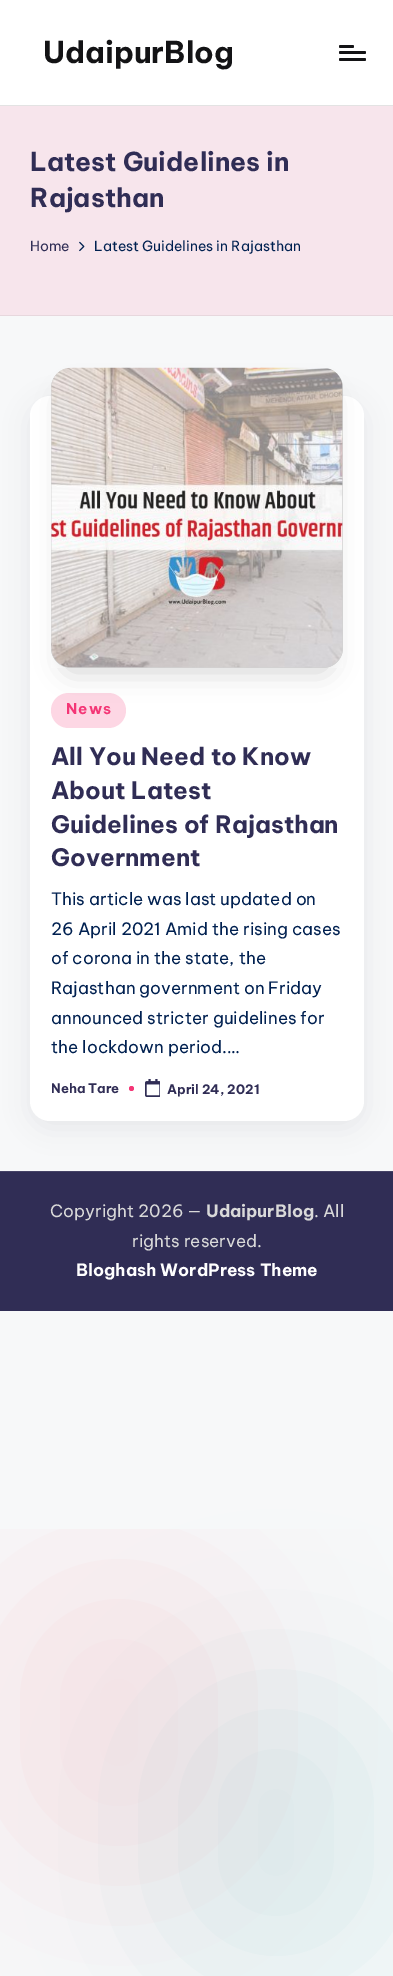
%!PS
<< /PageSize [393 1976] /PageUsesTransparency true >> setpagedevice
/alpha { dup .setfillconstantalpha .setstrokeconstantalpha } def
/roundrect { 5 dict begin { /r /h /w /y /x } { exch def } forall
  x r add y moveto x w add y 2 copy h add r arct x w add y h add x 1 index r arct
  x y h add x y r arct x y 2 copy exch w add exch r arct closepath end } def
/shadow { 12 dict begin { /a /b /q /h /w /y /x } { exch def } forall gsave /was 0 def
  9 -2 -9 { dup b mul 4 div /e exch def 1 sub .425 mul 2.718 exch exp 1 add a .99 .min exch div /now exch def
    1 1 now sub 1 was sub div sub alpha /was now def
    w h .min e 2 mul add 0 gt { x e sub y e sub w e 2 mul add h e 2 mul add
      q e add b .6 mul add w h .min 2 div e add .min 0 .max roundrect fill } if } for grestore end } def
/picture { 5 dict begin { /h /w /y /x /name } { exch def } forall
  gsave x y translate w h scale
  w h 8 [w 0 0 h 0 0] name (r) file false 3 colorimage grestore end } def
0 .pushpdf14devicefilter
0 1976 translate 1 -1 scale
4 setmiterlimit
0.969 0.973 0.976 setrgbcolor
0 0 393 1976 rectfill
1 setgray
0 0 393 105 rectfill
0.89 setgray
0 105 393 1 rectfill
/BeVietnamPro-Bold [30 0 0 -30 0 0] selectfont
0.075 0.075 0.082 setrgbcolor
43 63 moveto (UdaipurBlog) show
339 51 27 3 1.5 roundrect fill
339 45 15 3 1.5 roundrect fill
339 58 27 3 1.5 roundrect fill
0.969 0.898 0.925 setrgbcolor
0 106 393 209 rectfill
0.906 0.843 0.867 setrgbcolor
0 315 393 1 rectfill
/BeVietnamPro-Bold [26 0 0 -26 0 0] selectfont
0.188 0.176 0.333 setrgbcolor
30 171 moveto (Latest Guidelines in) show
30 207 moveto (Rajasthan) show
/BeVietnamPro-Regular [14 0 0 -14 0 0] selectfont
30 251 moveto (Home) show
(img1.rgb) 79 241 6 11 picture
0 0.125 0.314 setrgbcolor
94 251 moveto (Latest Guidelines in Rajasthan) show
0.271 0.263 0.376 setrgbcolor
30 403 334 725 20 12.5 0.1 shadow
1 setgray
30 396 334 725 20 roundrect fill
0.992 0.843 0.894 setrgbcolor
51 693 75 35 17.5 roundrect fill
0 setgray
64 395 266 276 8 14 0.18 shadow
0.82 setgray
51 368 292 300 20 roundrect fill
(img2.rgb) 51 367 292 301 picture
/BeVietnamPro-Bold [15 0 0 -15 0 0] selectfont
0.957 0.212 0.463 setrgbcolor
66 714 moveto 1 0 (News) ashow
/BeVietnamPro-Bold [24 0 0 -24 0 0] selectfont
0.188 0.176 0.333 setrgbcolor
51 765 moveto (All You Need to Know) show
51 799 moveto (About Latest) show
51 833 moveto (Guidelines of Rajasthan) show
51 866 moveto (Government) show
/BeVietnamPro-Regular [17 0 0 -17 0 0] selectfont
0 0.125 0.314 setrgbcolor
51 905 moveto (This article was last updated on) show
51 935 moveto (26 April 2021 Amid the rising cases) show
51 964 moveto (of corona in the state, the) show
51 994 moveto (Rajasthan government on Friday) show
51 1024 moveto (announced stricter guidelines for) show
51 1053 moveto (the lockdown period.…) show
/BeVietnamPro-Bold [13 0 0 -13 0 0] selectfont
0.188 0.176 0.333 setrgbcolor
51 1093 moveto (Neha Tare) show
0.957 0.212 0.463 setrgbcolor
newpath 131.5 1088.5 2.5 0 360 arc closepath fill
(img3.rgb) 145 1079 15 18 picture
0.188 0.176 0.333 setrgbcolor
167 1094 moveto (April 24, 2021) show
gsave
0 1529 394 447 rectclip
0.969 0.89 0.902 setrgbcolor
0 1579 238 287 119 80 1 shadow
grestore
0.016 0.525 0.545 setrgbcolor
158 1689 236 287 118 80 0.1 shadow
0.188 0.176 0.333 setrgbcolor
0 1172 393 139 rectfill
0.271 0.259 0.4 setrgbcolor
0 1171 393 1 rectfill
/BeVietnamPro-Regular [17 0 0 -17 0 0] selectfont
0.851 setgray
50 1217 moveto (Copyright 2026 —) show
/BeVietnamPro-Bold [17 0 0 -17 0 0] selectfont
206 1217 moveto (UdaipurBlog) show
/BeVietnamPro-Regular [17 0 0 -17 0 0] selectfont
314 1217 moveto (. All) show
132 1247 moveto (rights reserved.) show
/BeVietnamPro-Bold [17 0 0 -17 0 0] selectfont
1 setgray
76 1276 moveto (Bloghash WordPress Theme) show
.poppdf14devicefilter showpage
